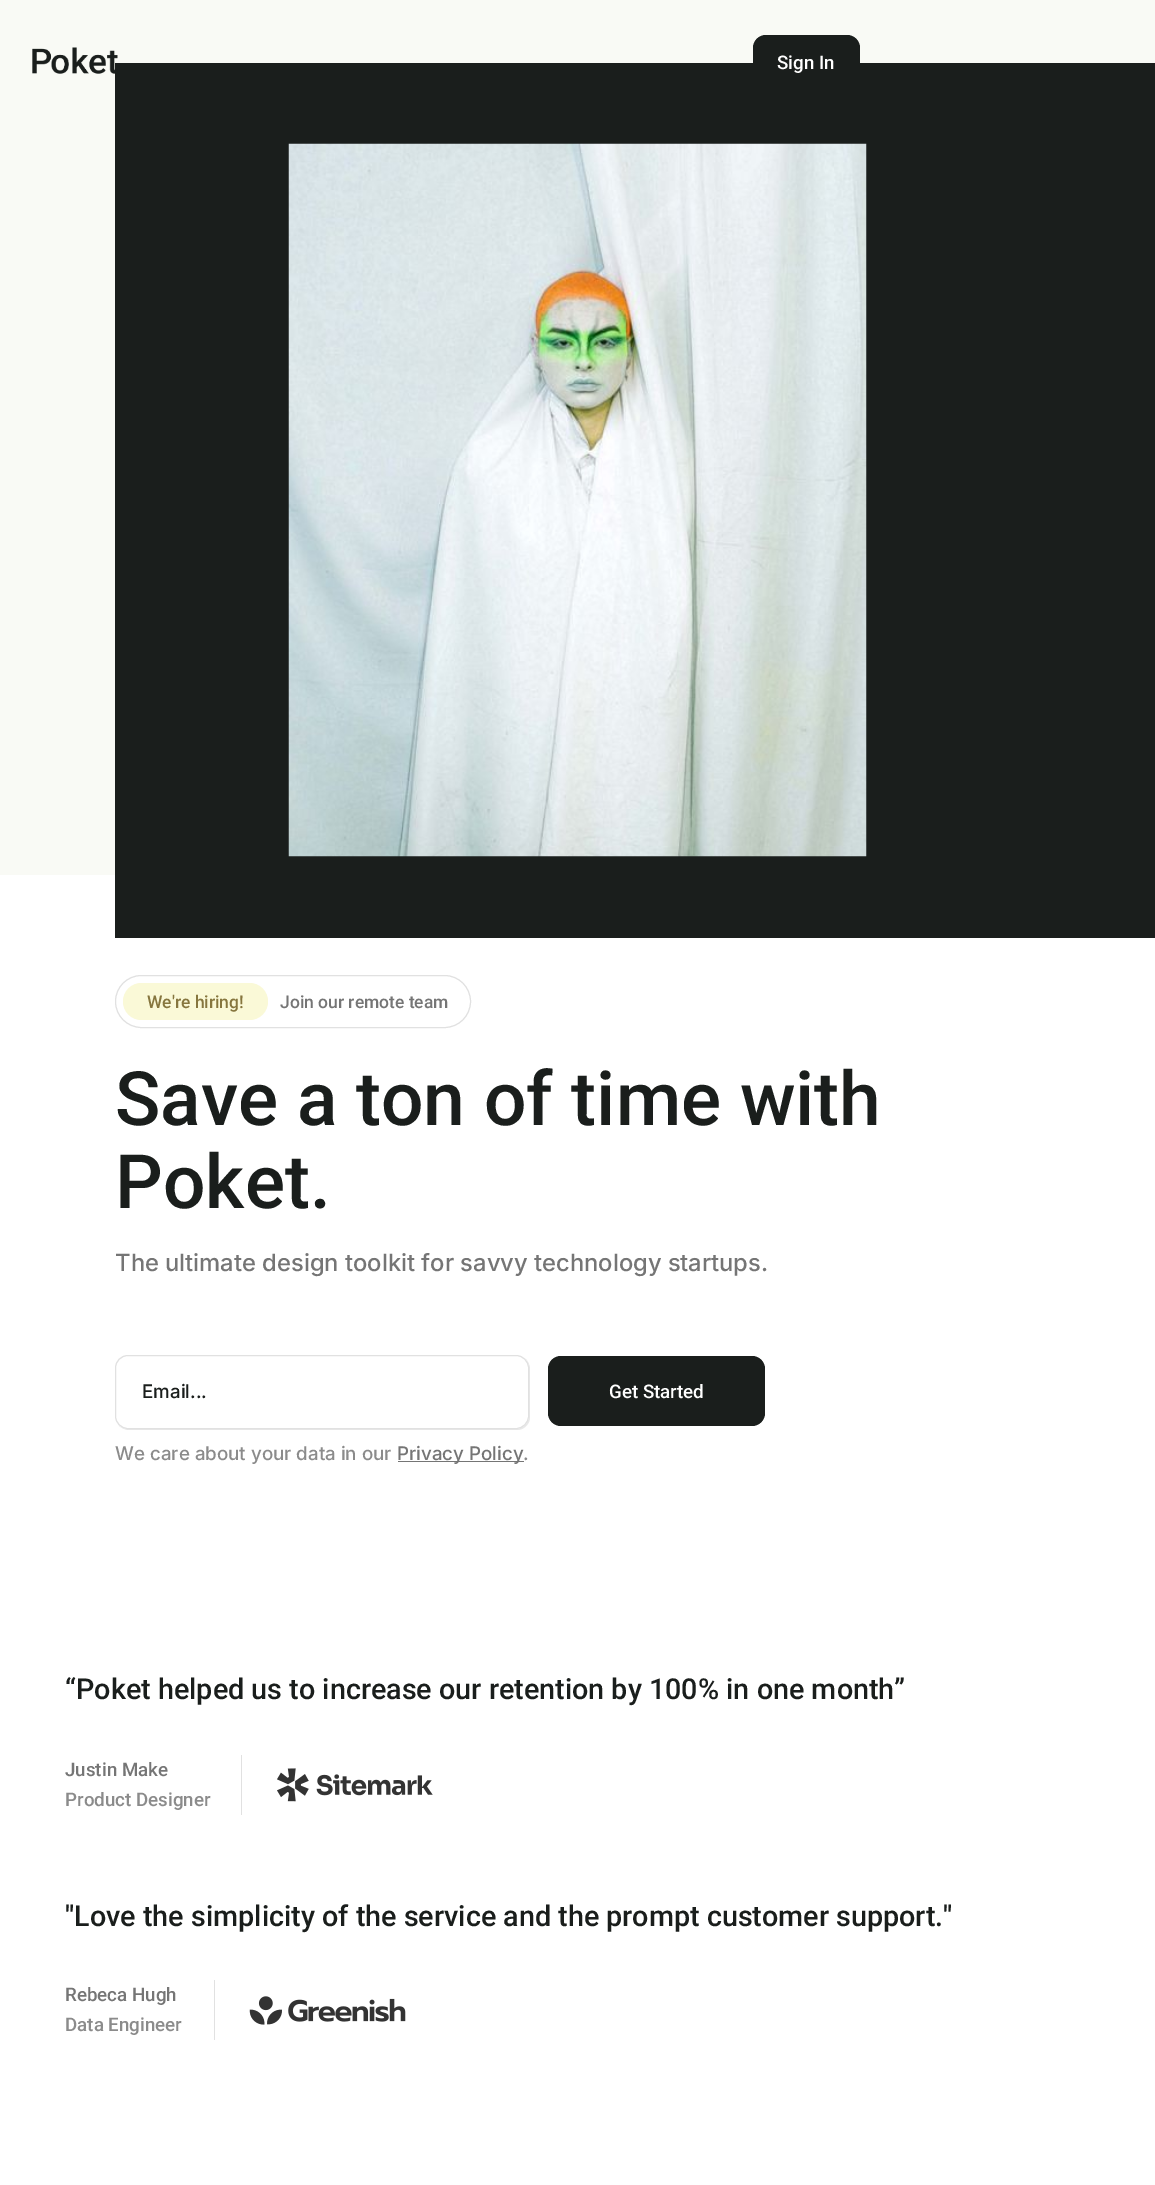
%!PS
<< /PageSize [1155 2185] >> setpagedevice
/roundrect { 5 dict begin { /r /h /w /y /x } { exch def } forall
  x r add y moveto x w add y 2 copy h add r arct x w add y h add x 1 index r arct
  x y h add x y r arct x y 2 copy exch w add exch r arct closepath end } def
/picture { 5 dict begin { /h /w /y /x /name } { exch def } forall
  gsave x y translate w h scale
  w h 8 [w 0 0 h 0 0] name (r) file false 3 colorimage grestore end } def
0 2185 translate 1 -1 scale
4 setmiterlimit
0.976 0.98 0.961 setrgbcolor
0 0 1155 2185 rectfill
1 setgray
0 875 1155 1310 rectfill
0.102 0.118 0.11 setrgbcolor
115 63 1040 875 rectfill
(img1.rgb) 32 47 86 27 picture
753 35 107 55 13 roundrect fill
/Roboto-Medium [18.75 0 0 -18.75 0 0] selectfont
1 setgray
777 69 moveto (Sign In) show
(img2.rgb) 288 143 579 714 picture
0.882 setgray
115.5 975.5 355 52 26 roundrect stroke
0.98 0.976 0.843 setrgbcolor
123 983 145 37 18.5 roundrect fill
/Roboto-Medium [17.5 0 0 -17.5 0 0] selectfont
0.525 0.463 0.243 setrgbcolor
147 1008 moveto (We're hiring!) show
0.459 setgray
280 1008 moveto (Join our remote team) show
/Roboto-Medium [75 0 0 -75 0 0] selectfont
0.102 0.118 0.11 setrgbcolor
115 1125 moveto (Save a ton of time with) show
115 1208 moveto (Poket.) show
/Inter-Medium [23.75 0 0 -23.75 0 0] selectfont
0.459 setgray
115 1271 moveto (The ultimate design toolkit for savvy technology startups.) show
0.914 setgray
newpath 119 1426 moveto 122 1428 125 1430 129 1430 curveto 517 1430 lineto 524 1430 530 1424 530 1417 curveto 530 1369 lineto 530 1365 528 1362 526 1359 curveto 528 1362 529 1364 529 1368 curveto 529 1416 lineto 529 1423 523 1429 516 1429 curveto 128 1429 lineto 124 1429 122 1428 119 1426 curveto closepath fill
1 setgray
115.5 1355.5 413 73 12.5 roundrect gsave fill grestore
0.882 setgray
stroke
/Inter-Medium [18.75 0 0 -18.75 0 0] selectfont
0.102 0.118 0.11 setrgbcolor
142 1398 moveto (Email...) show
548 1356 217 70 13 roundrect fill
/Roboto-Medium [18.75 0 0 -18.75 0 0] selectfont
1 setgray
609 1398 moveto (Get Started) show
/Inter-Medium [18.75 0 0 -18.75 0 0] selectfont
0.545 setgray
115 1460 moveto (We care about your data in our) show
0.459 setgray
398 1461 126 1 rectfill
397 1460 moveto (Privacy Policy) show
0.545 setgray
523 1460 moveto (.) show
/Roboto-Medium [28.75 0 0 -28.75 0 0] selectfont
0.102 0.118 0.11 setrgbcolor
65 1699 moveto (“Poket helped us to increase our retention by 100% in one month”) show
0.882 setgray
241 1755 1 60 rectfill
/Roboto-Medium [18.75 0 0 -18.75 0 0] selectfont
0.459 setgray
65 1776 moveto (Justin Make) show
0.545 setgray
65 1806 moveto (Product Designer) show
(img3.rgb) 277 1768 156 34 picture
/Roboto-Medium [28.75 0 0 -28.75 0 0] selectfont
0.102 0.118 0.11 setrgbcolor
65 1926 moveto ("Love the simplicity of the service and the prompt customer support.") show
0.882 setgray
214 1980 1 60 rectfill
/Roboto-Medium [18.75 0 0 -18.75 0 0] selectfont
0.459 setgray
65 2001 moveto (Rebeca Hugh) show
0.545 setgray
65 2031 moveto (Data Engineer) show
(img4.rgb) 249 1996 157 29 picture
showpage
